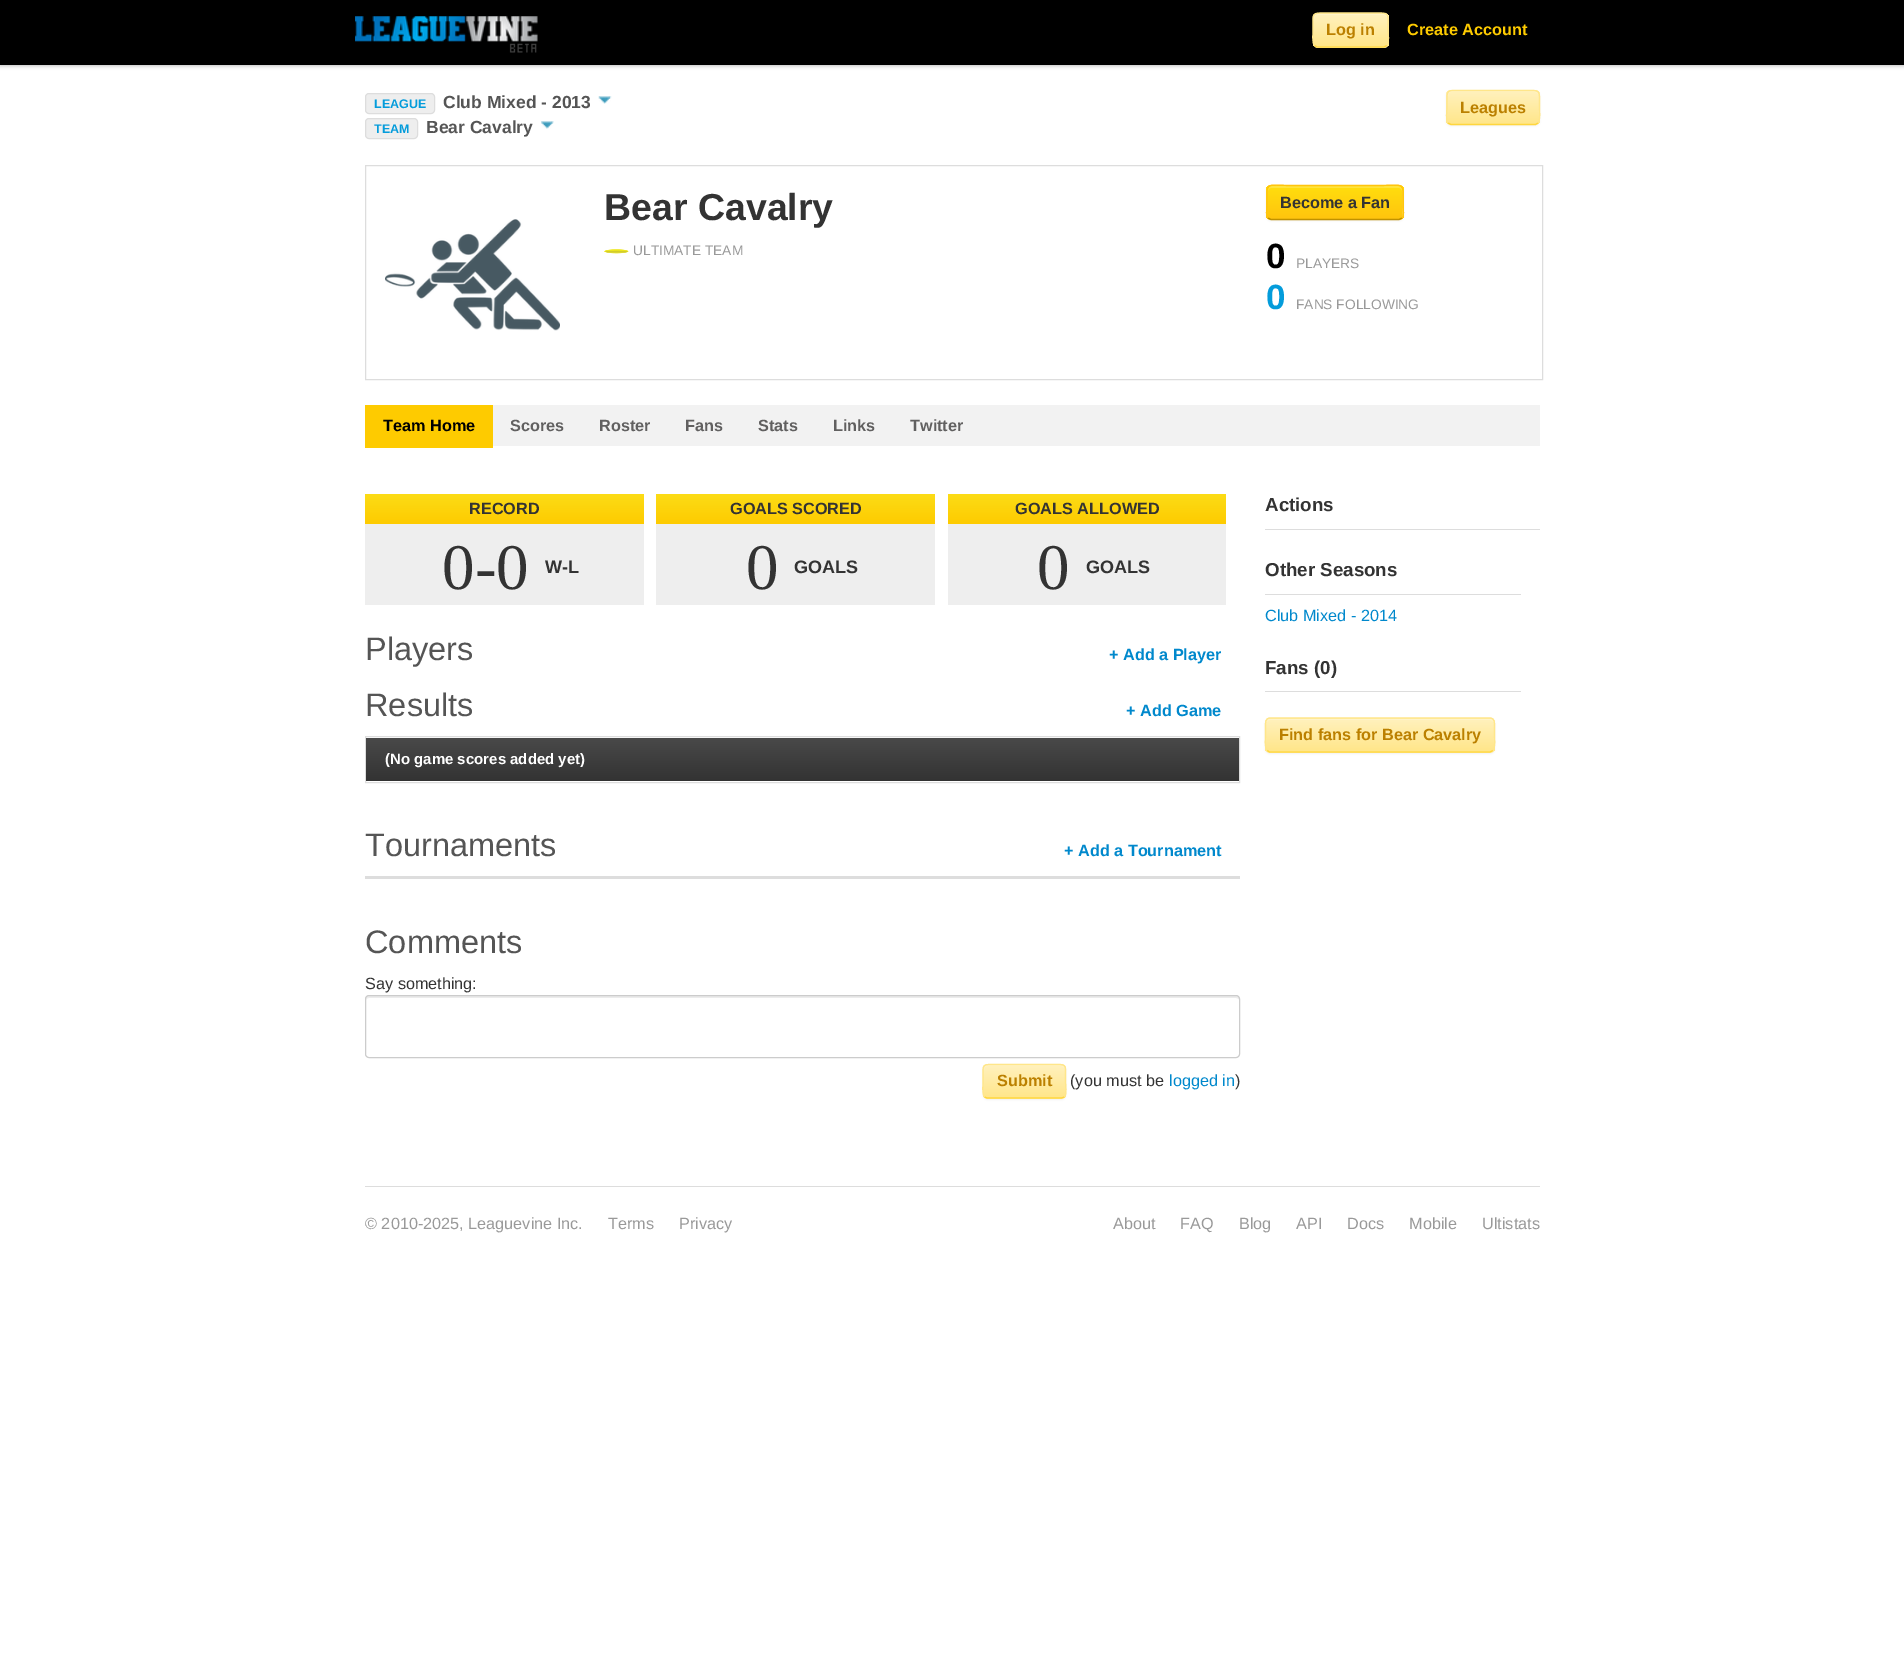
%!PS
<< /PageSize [1904 1658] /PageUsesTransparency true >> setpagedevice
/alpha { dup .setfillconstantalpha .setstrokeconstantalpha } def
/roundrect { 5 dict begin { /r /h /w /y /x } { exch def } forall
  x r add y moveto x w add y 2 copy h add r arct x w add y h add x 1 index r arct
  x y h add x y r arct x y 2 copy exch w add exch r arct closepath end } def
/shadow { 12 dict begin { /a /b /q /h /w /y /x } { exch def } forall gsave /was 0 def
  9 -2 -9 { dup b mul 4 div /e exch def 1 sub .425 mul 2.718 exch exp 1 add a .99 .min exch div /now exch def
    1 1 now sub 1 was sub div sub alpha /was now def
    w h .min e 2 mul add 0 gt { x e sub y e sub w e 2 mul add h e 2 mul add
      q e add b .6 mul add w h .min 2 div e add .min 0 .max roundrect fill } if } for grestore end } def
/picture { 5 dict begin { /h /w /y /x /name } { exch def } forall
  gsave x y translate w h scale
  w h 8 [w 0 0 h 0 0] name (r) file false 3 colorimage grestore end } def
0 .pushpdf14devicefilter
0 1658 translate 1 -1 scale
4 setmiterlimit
1 setgray
0 0 1904 1658 rectfill
0 setgray
0 1 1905 65 0 2 0.25 shadow
0 0 1904 65 rectfill
(img1.rgb) 355 16 183 37 picture
1 0.925 0.659 setrgbcolor
1313 13 76 35 5 roundrect fill
gsave
1313 13 76 35 5 roundrect clip newpath
gsave newpath 1313 14 moveto 1389 14 lineto 1389 46 lineto 1313 46 lineto closepath clip newpath
<< /ShadingType 2 /ColorSpace /DeviceRGB /Coords [1351 14 1351 46] /Extend [true true] /Function << /FunctionType 2 /Domain [0 1] /C0 [1 0.945 0.741] /C1 [1 0.902 0.541] /N 1 >> >> shfill grestore
grestore
0.2 alpha
1 setgray
newpath 1318 15 moveto 1384 15 lineto 1386 15 1388 17 1388 19 curveto 1388 11 1378 14 1373 14 curveto 1329 14 lineto 1324 14 1314 11 1314 19 curveto 1314 17 1315 15 1318 15 curveto closepath fill
1 alpha
1 0.839 0.243 setrgbcolor
1.2 setlinewidth
newpath 1387 45.5 moveto 1384 47 lineto 1317 47 lineto 1314.5 45.5 lineto stroke
1 0.902 0.541 setrgbcolor
newpath 1314.5 45.5 moveto 1312 43 1313 33 1313 30 curveto 1313 12 1310.5 13 1328.5 13 curveto 1372.5 13 lineto 1391 13 1388 12 1388 30 curveto 1388 33 1389.5 43 1387 45.5 curveto stroke
/LiberationSans-Bold [16.25 0 0 -16.25 0 0] selectfont
0.733 0.502 0 setrgbcolor
1326 35 moveto (Log in) show
0.996 0.796 0 setrgbcolor
1407 35 moveto (Create Account) show
0.933 setgray
365.5 93.5 69 20 3.5 roundrect gsave fill grestore
0.867 setgray
1 setlinewidth
stroke
/LiberationSans-Bold [12.5 0 0 -12.5 0 0] selectfont
0.016 0.612 0.859 setrgbcolor
374 108 moveto (LEAGUE) show
/LiberationSans-Bold [17.5 0 0 -17.5 0 0] selectfont
0.333 setgray
443 108 moveto (Club Mixed - 2013) show
(img2.rgb) 598 96 14 8 picture
0.933 setgray
365.5 118.5 52 20 3.5 roundrect gsave fill grestore
0.867 setgray
stroke
/LiberationSans-Bold [12.5 0 0 -12.5 0 0] selectfont
0.016 0.612 0.859 setrgbcolor
374 133 moveto (TEAM) show
/LiberationSans-Bold [17.5 0 0 -17.5 0 0] selectfont
0.333 setgray
426 133 moveto (Bear Cavalry) show
(img3.rgb) 541 121 13 8 picture
0 setgray
1446 91 94 35 5 1 0.05 shadow
1 0.925 0.659 setrgbcolor
1446 90 94 35 5 roundrect fill
gsave
1446 90 94 35 5 roundrect clip newpath
gsave newpath 1446 91 moveto 1540 91 lineto 1540 124 lineto 1446 124 lineto closepath clip newpath
<< /ShadingType 2 /ColorSpace /DeviceRGB /Coords [1493 91 1493 124] /Extend [true true] /Function << /FunctionType 2 /Domain [0 1] /C0 [1 0.945 0.741] /C1 [1 0.902 0.541] /N 1 >> >> shfill grestore
grestore
0.2 alpha
1 setgray
newpath 1451 92 moveto 1535 92 lineto 1537 92 1539 94 1539 96 curveto 1539 87 1526 91 1521 91 curveto 1466 91 lineto 1461 91 1448 87 1448 96 curveto 1448 94 1449 92 1451 92 curveto closepath fill
1 alpha
1 0.839 0.243 setrgbcolor
1.2 setlinewidth
newpath 1538 123 moveto 1535.5 124.5 lineto 1451 124.5 lineto 1448 123 lineto stroke
1 0.902 0.541 setrgbcolor
newpath 1448 123 moveto 1445.5 120.5 1447 110.5 1447 107.5 curveto 1447 88 1444.5 90.5 1465 90.5 curveto 1521 90.5 lineto 1541.5 90.5 1539.5 88 1539.5 107.5 curveto 1539.5 110.5 1540.5 120.5 1538 123 curveto stroke
/LiberationSans-Bold [16.25 0 0 -16.25 0 0] selectfont
0.733 0.502 0 setrgbcolor
1460 113 moveto (Leagues) show
0.867 setgray
1 setlinewidth
365.5 165.5 1177 214 rectstroke
(img4.rgb) 385 219 175 112 picture
/LiberationSans-Bold [37.5 0 0 -37.5 0 0] selectfont
0.2 setgray
604 220 moveto (Bear Cavalry) show
(img5.rgb) 604 249 25 5 picture
/LiberationSans-Regular [13.75 0 0 -13.75 0 0] selectfont
0.6 setgray
633 255 moveto (ULTIMATE TEAM) show
0 setgray
1266 186 138 35 5 1 0.05 shadow
1 0.827 0.051 setrgbcolor
1266 185 138 35 5 roundrect fill
gsave
1266 185 138 35 5 roundrect clip newpath
gsave newpath 1266 186 moveto 1404 186 lineto 1404 219 lineto 1266 219 lineto closepath clip newpath
<< /ShadingType 2 /ColorSpace /DeviceRGB /Coords [1335 186 1335 219] /Extend [true true] /Function << /FunctionType 2 /Domain [0 1] /C0 [1 0.871 0.051] /C1 [1 0.769 0.051] /N 1 >> >> shfill grestore
grestore
0.2 alpha
1 setgray
newpath 1271 188 moveto 1399 188 lineto 1404 188 1402 197 1402 199 curveto 1402 218 lineto 1402 217 1403 216 1403 215 curveto 1403 190 lineto 1403 188 1401 186 1399 186 curveto 1272 186 lineto 1270 186 1268 188 1268 190 curveto 1268 191 lineto 1268 189 1269 188 1271 188 curveto closepath fill
1 alpha
0.753 0.569 0 setrgbcolor
1.2 setlinewidth
newpath 1402 218 moveto 1399 219.5 lineto 1292.5 219.5 lineto 1271 219.5 lineto 1268 218 lineto stroke
1 0.769 0.051 setrgbcolor
newpath 1268 218 moveto 1265.5 215.5 1267 210 1267 206.5 curveto 1267 180.5 1263.5 185.5 1292.5 185.5 curveto 1377.5 185.5 lineto 1406.5 185.5 1403 180.5 1403 206.5 curveto 1403 210 1404.5 215.5 1402 218 curveto stroke
/LiberationSans-Bold [16.25 0 0 -16.25 0 0] selectfont
0.2 setgray
1280 208 moveto (Become a Fan) show
/LiberationSans-Bold [35 0 0 -35 0 0] selectfont
0 setgray
1266 268 moveto (0) show
/LiberationSans-Regular [13.75 0 0 -13.75 0 0] selectfont
0.6 setgray
1296 268 moveto (PLAYERS) show
/LiberationSans-Bold [35 0 0 -35 0 0] selectfont
0.016 0.612 0.859 setrgbcolor
1266 309 moveto (0) show
/LiberationSans-Regular [13.75 0 0 -13.75 0 0] selectfont
0.6 setgray
1296 309 moveto (FANS FOLLOWING) show
0.949 setgray
493 405 1047 41 rectfill
0.996 0.796 0 setrgbcolor
365 405 128 43 rectfill
/LiberationSans-Bold [16.25 0 0 -16.25 0 0] selectfont
0 setgray
383 431 moveto (Team Home) show
0.38 0.376 0.376 setrgbcolor
510 431 moveto (Scores) show
599 431 moveto (Roster) show
685 431 moveto (Fans) show
758 431 moveto (Stats) show
833 431 moveto (Links) show
910 431 moveto (Twitter) show
0.933 setgray
365 524 279 81 rectfill
gsave newpath 365 494 moveto 644 494 lineto 644 524 lineto 365 524 lineto closepath clip newpath
<< /ShadingType 2 /ColorSpace /DeviceRGB /Coords [504 494 504 524] /Extend [true true] /Function << /FunctionType 2 /Domain [0 1] /C0 [0.988 0.863 0.086] /C1 [0.996 0.796 0] /N 1 >> >> shfill grestore
0.2 setgray
469 514 moveto (RECORD) show
/LiberationSerif-Regular [65 0 0 -65 0 0] selectfont
442 589 moveto (0-0) show
/LiberationSans-Bold [18 0 0 -18 0 0] selectfont
545 573 moveto (W-L) show
0.933 setgray
656 524 279 81 rectfill
gsave newpath 656 494 moveto 935 494 lineto 935 524 lineto 656 524 lineto closepath clip newpath
<< /ShadingType 2 /ColorSpace /DeviceRGB /Coords [796 494 796 524] /Extend [true true] /Function << /FunctionType 2 /Domain [0 1] /C0 [0.988 0.863 0.086] /C1 [0.996 0.796 0] /N 1 >> >> shfill grestore
/LiberationSans-Bold [16.25 0 0 -16.25 0 0] selectfont
0.2 setgray
730 514 moveto (GOALS SCORED) show
/LiberationSerif-Regular [65 0 0 -65 0 0] selectfont
746 589 moveto (0) show
/LiberationSans-Bold [18 0 0 -18 0 0] selectfont
794 573 moveto (GOALS) show
0.933 setgray
948 524 278 81 rectfill
gsave newpath 948 494 moveto 1226 494 lineto 1226 524 lineto 948 524 lineto closepath clip newpath
<< /ShadingType 2 /ColorSpace /DeviceRGB /Coords [1087 494 1087 524] /Extend [true true] /Function << /FunctionType 2 /Domain [0 1] /C0 [0.988 0.863 0.086] /C1 [0.996 0.796 0] /N 1 >> >> shfill grestore
/LiberationSans-Bold [16.25 0 0 -16.25 0 0] selectfont
0.2 setgray
1015 514 moveto (GOALS ALLOWED) show
/LiberationSerif-Regular [65 0 0 -65 0 0] selectfont
1037 589 moveto (0) show
/LiberationSans-Bold [18 0 0 -18 0 0] selectfont
1086 573 moveto (GOALS) show
/LiberationSans-Regular [32.5 0 0 -32.5 0 0] selectfont
0.333 setgray
365 660 moveto (Players) show
/LiberationSans-Bold [16.25 0 0 -16.25 0 0] selectfont
0 0.533 0.8 setrgbcolor
1109 660 moveto (+ Add a Player) show
/LiberationSans-Regular [32.5 0 0 -32.5 0 0] selectfont
0.333 setgray
365 716 moveto (Results) show
/LiberationSans-Bold [16.25 0 0 -16.25 0 0] selectfont
0 0.533 0.8 setrgbcolor
1126 716 moveto (+ Add Game) show
0.867 setgray
1 setlinewidth
365.5 736.5 874 46 rectstroke
gsave newpath 366 738 moveto 1239 738 lineto 1239 781 lineto 366 781 lineto closepath clip newpath
<< /ShadingType 2 /ColorSpace /DeviceRGB /Coords [803 738 803 781] /Extend [true true] /Function << /FunctionType 2 /Domain [0 1] /C0 [0.286 0.286 0.286] /C1 [0.2 0.2 0.2] /N 1 >> >> shfill grestore
/LiberationSans-Bold [15 0 0 -15 0 0] selectfont
1 setgray
385 764 moveto (\(No game scores added yet\)) show
/LiberationSans-Regular [32.5 0 0 -32.5 0 0] selectfont
0.333 setgray
365 856 moveto (Tournaments) show
/LiberationSans-Bold [16.25 0 0 -16.25 0 0] selectfont
0 0.533 0.8 setrgbcolor
1064 856 moveto (+ Add a Tournament) show
0.867 setgray
365 876 875 3 rectfill
/LiberationSans-Regular [32.5 0 0 -32.5 0 0] selectfont
0.333 setgray
365 953 moveto (Comments) show
/LiberationSans-Regular [16.25 0 0 -16.25 0 0] selectfont
0.2 setgray
365 989 moveto (Say something:) show
0.925 setgray
newpath 369 998 moveto 1236 998 lineto 1238 998 1239 999 1239 1000 curveto 1239 998 lineto 1239 997 1238 996 1236 996 curveto 368 996 lineto 367 996 366 997 366 998 curveto 366 1000 lineto 366 999 367 998 369 998 curveto closepath fill
0.8 setgray
365.5 995.5 874 62 3.5 roundrect stroke
0 setgray
983 1065 83 35 5 1 0.05 shadow
1 0.925 0.659 setrgbcolor
983 1064 83 35 5 roundrect fill
gsave
983 1064 83 35 5 roundrect clip newpath
gsave newpath 983 1065 moveto 1066 1065 lineto 1066 1098 lineto 983 1098 lineto closepath clip newpath
<< /ShadingType 2 /ColorSpace /DeviceRGB /Coords [1024 1065 1024 1098] /Extend [true true] /Function << /FunctionType 2 /Domain [0 1] /C0 [1 0.945 0.741] /C1 [1 0.902 0.541] /N 1 >> >> shfill grestore
grestore
0.2 alpha
1 setgray
newpath 988 1066 moveto 1061 1066 lineto 1063 1066 1065 1068 1065 1070 curveto 1065 1062 1054 1065 1049 1065 curveto 1000 1065 lineto 995 1065 984 1062 984 1070 curveto 984 1068 985 1066 988 1066 curveto closepath fill
1 alpha
1 0.839 0.243 setrgbcolor
1.2 setlinewidth
newpath 1064.5 1097 moveto 1061.5 1098 lineto 987 1098 lineto 984.5 1097 lineto stroke
1 0.902 0.541 setrgbcolor
newpath 984.5 1097 moveto 982 1094.5 983 1084.5 983 1081 curveto 983 1062.5 980.5 1064.5 1000 1064.5 curveto 1049 1064.5 lineto 1068 1064.5 1065.5 1062.5 1065.5 1081 curveto 1065.5 1084.5 1067 1094.5 1064.5 1097 curveto stroke
/LiberationSans-Bold [16.25 0 0 -16.25 0 0] selectfont
0.733 0.502 0 setrgbcolor
997 1086 moveto (Submit) show
/LiberationSans-Regular [16.25 0 0 -16.25 0 0] selectfont
0.2 setgray
1070 1086 moveto (\(you must be) show
0 0.533 0.8 setrgbcolor
1169 1086 moveto (logged in) show
0.2 setgray
1235 1086 moveto (\)) show
0.867 setgray
1265 529 275 1 rectfill
/LiberationSans-Bold [18.75 0 0 -18.75 0 0] selectfont
0.2 setgray
1265 511 moveto (Actions) show
0.867 setgray
1265 594 256 1 rectfill
0.2 setgray
1265 576 moveto (Other Seasons) show
/LiberationSans-Regular [16.25 0 0 -16.25 0 0] selectfont
0 0.533 0.8 setrgbcolor
1265 621 moveto (Club Mixed - 2014) show
0.867 setgray
1265 691 256 1 rectfill
/LiberationSans-Bold [18.75 0 0 -18.75 0 0] selectfont
0.2 setgray
1265 674 moveto (Fans \(0\)) show
0 setgray
1265 719 230 35 5 1 0.05 shadow
1 0.925 0.659 setrgbcolor
1265 718 230 35 5 roundrect fill
gsave
1265 718 230 35 5 roundrect clip newpath
gsave newpath 1265 719 moveto 1495 719 lineto 1495 751 lineto 1265 751 lineto closepath clip newpath
<< /ShadingType 2 /ColorSpace /DeviceRGB /Coords [1380 719 1380 751] /Extend [true true] /Function << /FunctionType 2 /Domain [0 1] /C0 [1 0.945 0.741] /C1 [1 0.902 0.541] /N 1 >> >> shfill grestore
grestore
0.2 alpha
1 setgray
newpath 1270 720 moveto 1490 720 lineto 1492 720 1494 722 1494 724 curveto 1494 721 1493 719 1490 719 curveto 1270 719 lineto 1267 719 1266 721 1266 724 curveto 1266 722 1268 720 1270 720 curveto closepath fill
1 alpha
1 0.839 0.243 setrgbcolor
newpath 1493 750.5 moveto 1490 752 lineto 1269.5 752 lineto 1267 750.5 lineto stroke
1 0.902 0.541 setrgbcolor
newpath 1267 750.5 moveto 1264.5 748 1265.5 738 1265.5 735 curveto 1265.5 726.5 lineto 1265.5 723.5 1265 718 1270 718 curveto 1490 718 lineto 1495 718 1494.5 723.5 1494.5 726.5 curveto 1494.5 735 lineto 1494.5 738 1495.5 748 1493 750.5 curveto stroke
/LiberationSans-Bold [16.25 0 0 -16.25 0 0] selectfont
0.733 0.502 0 setrgbcolor
1279 740 moveto (Find fans for Bear Cavalry) show
0.867 setgray
365 1186 1175 1 rectfill
/LiberationSans-Regular [16.25 0 0 -16.25 0 0] selectfont
0.6 setgray
365 1229 moveto (© 2010-2025, Leaguevine Inc.) show
608 1229 moveto (Terms) show
679 1229 moveto (Privacy) show
1113 1229 moveto (About) show
1180 1229 moveto (FAQ) show
1239 1229 moveto (Blog) show
1296 1229 moveto (API) show
1347 1229 moveto (Docs) show
1409 1229 moveto (Mobile) show
1482 1229 moveto (Ultistats) show
.poppdf14devicefilter showpage
